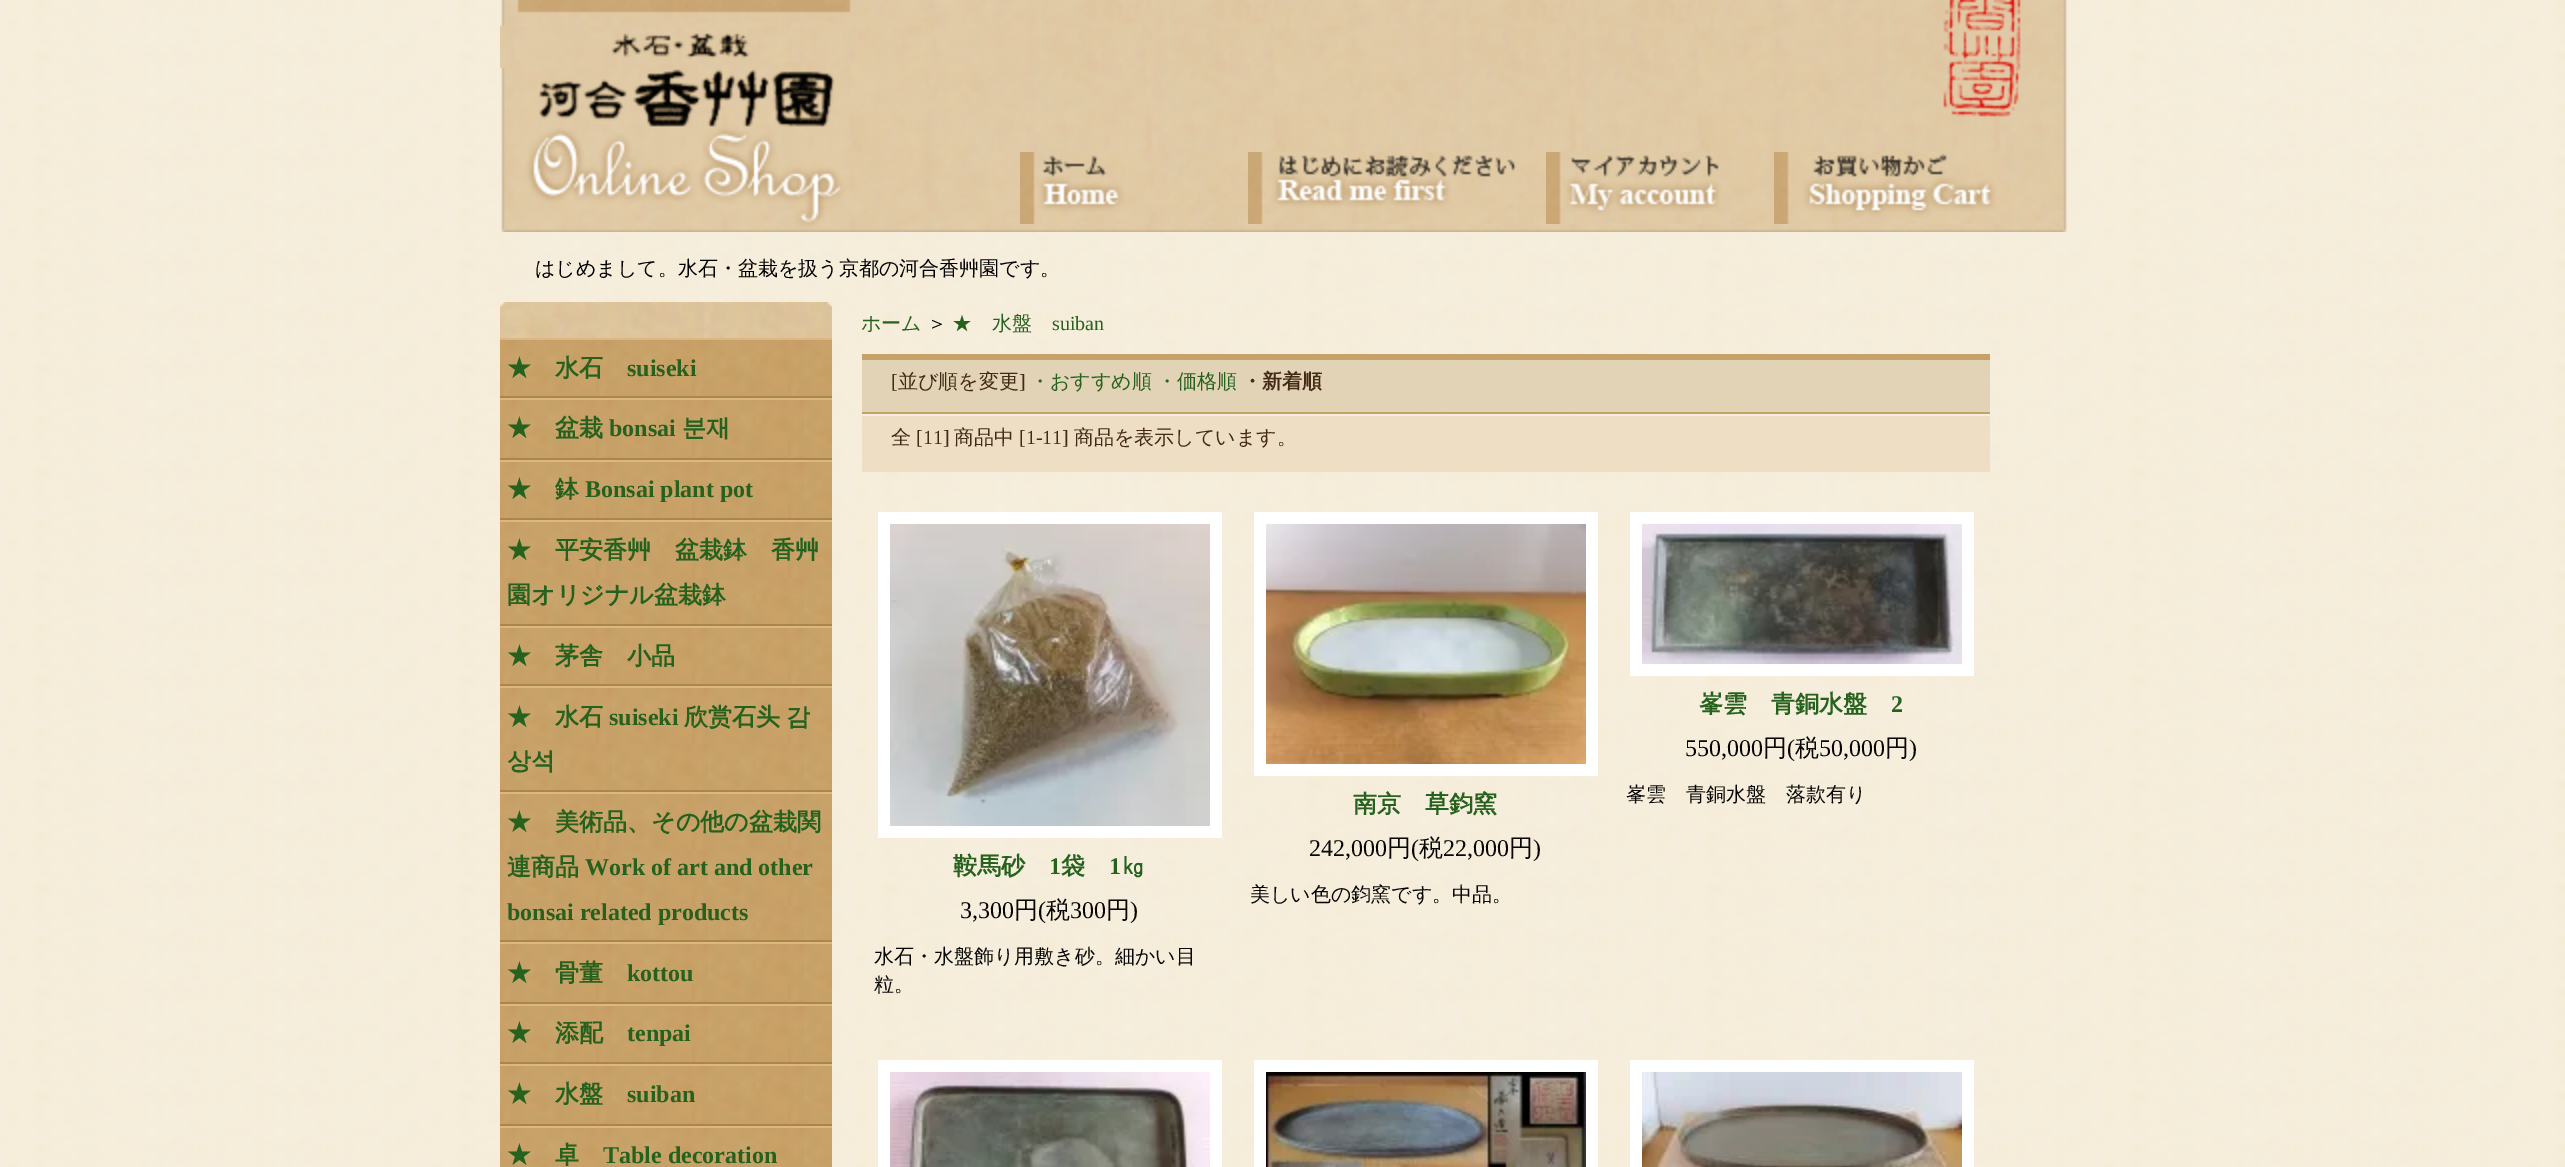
%!PS
<< /PageSize [2565 1167] >> setpagedevice
/picture { 5 dict begin { /h /w /y /x /name } { exch def } forall
  gsave x y translate w h scale
  w h 8 [w 0 0 h 0 0] name (r) file false 3 colorimage grestore end } def
0 1167 translate 1 -1 scale
4 setmiterlimit
1 setgray
0 0 2565 1167 rectfill
(img1.rgb) 0 0 2565 1167 picture
(img2.rgb) 500 0 1568 232 picture
(img3.rgb) 1020 152 200 72 picture
(img4.rgb) 1248 152 270 72 picture
(img5.rgb) 1546 152 198 72 picture
(img6.rgb) 1774 152 226 72 picture
/WenQuanYiZenHei-Medium [20 0 0 -20 0 0] selectfont
0 setgray
535 275 moveto (はじめまして。水石・盆栽を扱う京都の河合香艸園です。) show
(img7.rgb) 500 302 332 36 picture
(img8.rgb) 500 340 332 56 picture
0.855 0.718 0.514 setrgbcolor
500 338 332 2 rectfill
0.675 0.522 0.286 setrgbcolor
500 396 332 2 rectfill
/WenQuanYiZenHei-Bold [24 0 0 -24 0 0] selectfont
0.149 0.384 0.118 setrgbcolor
507 376 moveto (★　水石) show
/LiberationSerif-Bold [24 0 0 -24 0 0] selectfont
627 376 moveto (suiseki) show
(img9.rgb) 500 400 332 58 picture
0.855 0.718 0.514 setrgbcolor
500 398 332 2 rectfill
0.675 0.522 0.286 setrgbcolor
500 458 332 2 rectfill
/WenQuanYiZenHei-Bold [24 0 0 -24 0 0] selectfont
0.149 0.384 0.118 setrgbcolor
507 436 moveto (★　盆栽) show
/LiberationSerif-Bold [24 0 0 -24 0 0] selectfont
609 436 moveto (bonsai) show
/WenQuanYiZenHei-Bold [24 0 0 -24 0 0] selectfont
682 436 moveto (분재) show
(img8.rgb) 500 462 332 56 picture
0.855 0.718 0.514 setrgbcolor
500 460 332 2 rectfill
0.675 0.522 0.286 setrgbcolor
500 518 332 2 rectfill
0.149 0.384 0.118 setrgbcolor
507 497 moveto (★　鉢) show
/LiberationSerif-Bold [24 0 0 -24 0 0] selectfont
585 497 moveto (Bonsai plant pot) show
(img10.rgb) 500 522 332 102 picture
0.855 0.718 0.514 setrgbcolor
500 520 332 2 rectfill
0.675 0.522 0.286 setrgbcolor
500 624 332 2 rectfill
/WenQuanYiZenHei-Bold [24 0 0 -24 0 0] selectfont
0.149 0.384 0.118 setrgbcolor
507 558 moveto (★　平安香艸　盆栽鉢　香艸) show
507 603 moveto (園オリジナル盆栽鉢) show
(img8.rgb) 500 628 332 56 picture
0.855 0.718 0.514 setrgbcolor
500 626 332 2 rectfill
0.675 0.522 0.286 setrgbcolor
500 684 332 2 rectfill
0.149 0.384 0.118 setrgbcolor
507 664 moveto (★　茅舎　小品) show
(img10.rgb) 500 688 332 102 picture
0.855 0.718 0.514 setrgbcolor
500 686 332 2 rectfill
0.675 0.522 0.286 setrgbcolor
500 790 332 2 rectfill
0.149 0.384 0.118 setrgbcolor
507 725 moveto (★　水石) show
/LiberationSerif-Bold [24 0 0 -24 0 0] selectfont
609 725 moveto (suiseki) show
/WenQuanYiZenHei-Bold [24 0 0 -24 0 0] selectfont
684 725 moveto (欣赏石头) show
786 725 moveto (감) show
507 769 moveto (상석) show
(img11.rgb) 500 794 332 146 picture
0.855 0.718 0.514 setrgbcolor
500 792 332 2 rectfill
0.675 0.522 0.286 setrgbcolor
500 940 332 2 rectfill
0.149 0.384 0.118 setrgbcolor
507 830 moveto (★　美術品、その他の盆栽関) show
507 875 moveto (連商品) show
/LiberationSerif-Bold [24 0 0 -24 0 0] selectfont
585 875 moveto (Work of art and other) show
507 920 moveto (bonsai related products) show
(img9.rgb) 500 944 332 58 picture
0.855 0.718 0.514 setrgbcolor
500 942 332 2 rectfill
0.675 0.522 0.286 setrgbcolor
500 1002 332 2 rectfill
/WenQuanYiZenHei-Bold [24 0 0 -24 0 0] selectfont
0.149 0.384 0.118 setrgbcolor
507 981 moveto (★　骨董) show
/LiberationSerif-Bold [24 0 0 -24 0 0] selectfont
627 981 moveto (kottou) show
(img8.rgb) 500 1006 332 56 picture
0.855 0.718 0.514 setrgbcolor
500 1004 332 2 rectfill
0.675 0.522 0.286 setrgbcolor
500 1062 332 2 rectfill
/WenQuanYiZenHei-Bold [24 0 0 -24 0 0] selectfont
0.149 0.384 0.118 setrgbcolor
507 1041 moveto (★　添配) show
/LiberationSerif-Bold [24 0 0 -24 0 0] selectfont
627 1041 moveto (tenpai) show
(img9.rgb) 500 1066 332 58 picture
0.855 0.718 0.514 setrgbcolor
500 1064 332 2 rectfill
0.675 0.522 0.286 setrgbcolor
500 1124 332 2 rectfill
/WenQuanYiZenHei-Bold [24 0 0 -24 0 0] selectfont
0.149 0.384 0.118 setrgbcolor
507 1102 moveto (★　水盤) show
/LiberationSerif-Bold [24 0 0 -24 0 0] selectfont
627 1102 moveto (suiban) show
(img12.rgb) 500 1128 332 39 picture
0.855 0.718 0.514 setrgbcolor
500 1126 332 2 rectfill
/WenQuanYiZenHei-Bold [24 0 0 -24 0 0] selectfont
0.149 0.384 0.118 setrgbcolor
507 1163 moveto (★　卓) show
/LiberationSerif-Bold [24 0 0 -24 0 0] selectfont
603 1163 moveto (Table decoration) show
0.776 0.635 0.408 setrgbcolor
862 354 1128 6 rectfill
/WenQuanYiZenHei-Medium [20 0 0 -20 0 0] selectfont
0.149 0.384 0.118 setrgbcolor
861 330 moveto (ホーム) show
0 setgray
927 330 moveto (＞) show
0.149 0.384 0.118 setrgbcolor
952 330 moveto (★　水盤) show
/LiberationSerif-Regular [20 0 0 -20 0 0] selectfont
1052 330 moveto (suiban) show
0.89 0.827 0.714 setrgbcolor
862 360 1128 52 rectfill
0.776 0.635 0.408 setrgbcolor
862 412 1128 2 rectfill
0.263 0.165 0.086 setrgbcolor
891 388 moveto ([) show
/WenQuanYiZenHei-Medium [20 0 0 -20 0 0] selectfont
898 388 moveto (並び順を変更) show
/LiberationSerif-Regular [20 0 0 -20 0 0] selectfont
1019 388 moveto (]) show
/WenQuanYiZenHei-Medium [20 0 0 -20 0 0] selectfont
0.149 0.384 0.118 setrgbcolor
1030 388 moveto (・おすすめ順) show
1157 388 moveto (・価格順) show
/WenQuanYiZenHei-Bold [20 0 0 -20 0 0] selectfont
0.263 0.165 0.086 setrgbcolor
1242 388 moveto (・新着順) show
0.929 0.871 0.769 setrgbcolor
862 416 1128 56 rectfill
/WenQuanYiZenHei-Medium [20 0 0 -20 0 0] selectfont
0.263 0.165 0.086 setrgbcolor
891 444 moveto (全) show
/LiberationSerif-Regular [20 0 0 -20 0 0] selectfont
916 444 moveto ([11]) show
/WenQuanYiZenHei-Medium [20 0 0 -20 0 0] selectfont
954 444 moveto (商品中) show
/LiberationSerif-Regular [20 0 0 -20 0 0] selectfont
1019 444 moveto ([1-11]) show
/WenQuanYiZenHei-Medium [20 0 0 -20 0 0] selectfont
1074 444 moveto (商品を表示しています。) show
1 setgray
1630 512 344 164 rectfill
(img13.rgb) 1642 524 320 140 picture
/WenQuanYiZenHei-Bold [24 0 0 -24 0 0] selectfont
0.149 0.384 0.118 setrgbcolor
1699 712 moveto (峯雲　青銅水盤) show
/LiberationSerif-Bold [24 0 0 -24 0 0] selectfont
1891 712 moveto (2) show
/LiberationSerif-Regular [24 0 0 -24 0 0] selectfont
0.027 0.024 0.016 setrgbcolor
1685 756 moveto (550,000) show
/WenQuanYiZenHei-Medium [24 0 0 -24 0 0] selectfont
1763 756 moveto (円) show
/LiberationSerif-Regular [24 0 0 -24 0 0] selectfont
1787 756 moveto (\() show
/WenQuanYiZenHei-Medium [24 0 0 -24 0 0] selectfont
1795 756 moveto (税) show
/LiberationSerif-Regular [24 0 0 -24 0 0] selectfont
1819 756 moveto (50,000) show
/WenQuanYiZenHei-Medium [24 0 0 -24 0 0] selectfont
1885 756 moveto (円) show
/LiberationSerif-Regular [24 0 0 -24 0 0] selectfont
1909 756 moveto (\)) show
/WenQuanYiZenHei-Medium [20 0 0 -20 0 0] selectfont
1626 801 moveto (峯雲　青銅水盤　落款有り) show
1 setgray
878 512 344 326 rectfill
(img14.rgb) 890 524 320 302 picture
/WenQuanYiZenHei-Bold [24 0 0 -24 0 0] selectfont
0.149 0.384 0.118 setrgbcolor
953 874 moveto (鞍馬砂) show
/LiberationSerif-Bold [24 0 0 -24 0 0] selectfont
1049 874 moveto (1) show
/WenQuanYiZenHei-Bold [24 0 0 -24 0 0] selectfont
1061 874 moveto (袋) show
/LiberationSerif-Bold [24 0 0 -24 0 0] selectfont
1109 874 moveto (1) show
/WenQuanYiZenHei-Bold [24 0 0 -24 0 0] selectfont
1121 874 moveto (㎏) show
/LiberationSerif-Regular [24 0 0 -24 0 0] selectfont
0.027 0.024 0.016 setrgbcolor
960 918 moveto (3,300) show
/WenQuanYiZenHei-Medium [24 0 0 -24 0 0] selectfont
1014 918 moveto (円) show
/LiberationSerif-Regular [24 0 0 -24 0 0] selectfont
1038 918 moveto (\() show
/WenQuanYiZenHei-Medium [24 0 0 -24 0 0] selectfont
1046 918 moveto (税) show
/LiberationSerif-Regular [24 0 0 -24 0 0] selectfont
1070 918 moveto (300) show
/WenQuanYiZenHei-Medium [24 0 0 -24 0 0] selectfont
1106 918 moveto (円) show
/LiberationSerif-Regular [24 0 0 -24 0 0] selectfont
1130 918 moveto (\)) show
/WenQuanYiZenHei-Medium [20 0 0 -20 0 0] selectfont
874 963 moveto (水石・水盤飾り用敷き砂。細かい目) show
874 991 moveto (粒。) show
1 setgray
1254 512 344 264 rectfill
(img15.rgb) 1266 524 320 240 picture
/WenQuanYiZenHei-Bold [24 0 0 -24 0 0] selectfont
0.149 0.384 0.118 setrgbcolor
1353 812 moveto (南京　草鈞窯) show
/LiberationSerif-Regular [24 0 0 -24 0 0] selectfont
0.027 0.024 0.016 setrgbcolor
1309 856 moveto (242,000) show
/WenQuanYiZenHei-Medium [24 0 0 -24 0 0] selectfont
1387 856 moveto (円) show
/LiberationSerif-Regular [24 0 0 -24 0 0] selectfont
1411 856 moveto (\() show
/WenQuanYiZenHei-Medium [24 0 0 -24 0 0] selectfont
1419 856 moveto (税) show
/LiberationSerif-Regular [24 0 0 -24 0 0] selectfont
1443 856 moveto (22,000) show
/WenQuanYiZenHei-Medium [24 0 0 -24 0 0] selectfont
1509 856 moveto (円) show
/LiberationSerif-Regular [24 0 0 -24 0 0] selectfont
1533 856 moveto (\)) show
/WenQuanYiZenHei-Medium [20 0 0 -20 0 0] selectfont
1250 901 moveto (美しい色の鈞窯です。中品。) show
1 setgray
878 1060 344 107 rectfill
(img16.rgb) 890 1072 320 95 picture
1254 1060 344 107 rectfill
(img17.rgb) 1266 1072 320 95 picture
1630 1060 344 107 rectfill
(img18.rgb) 1642 1072 320 95 picture
showpage
